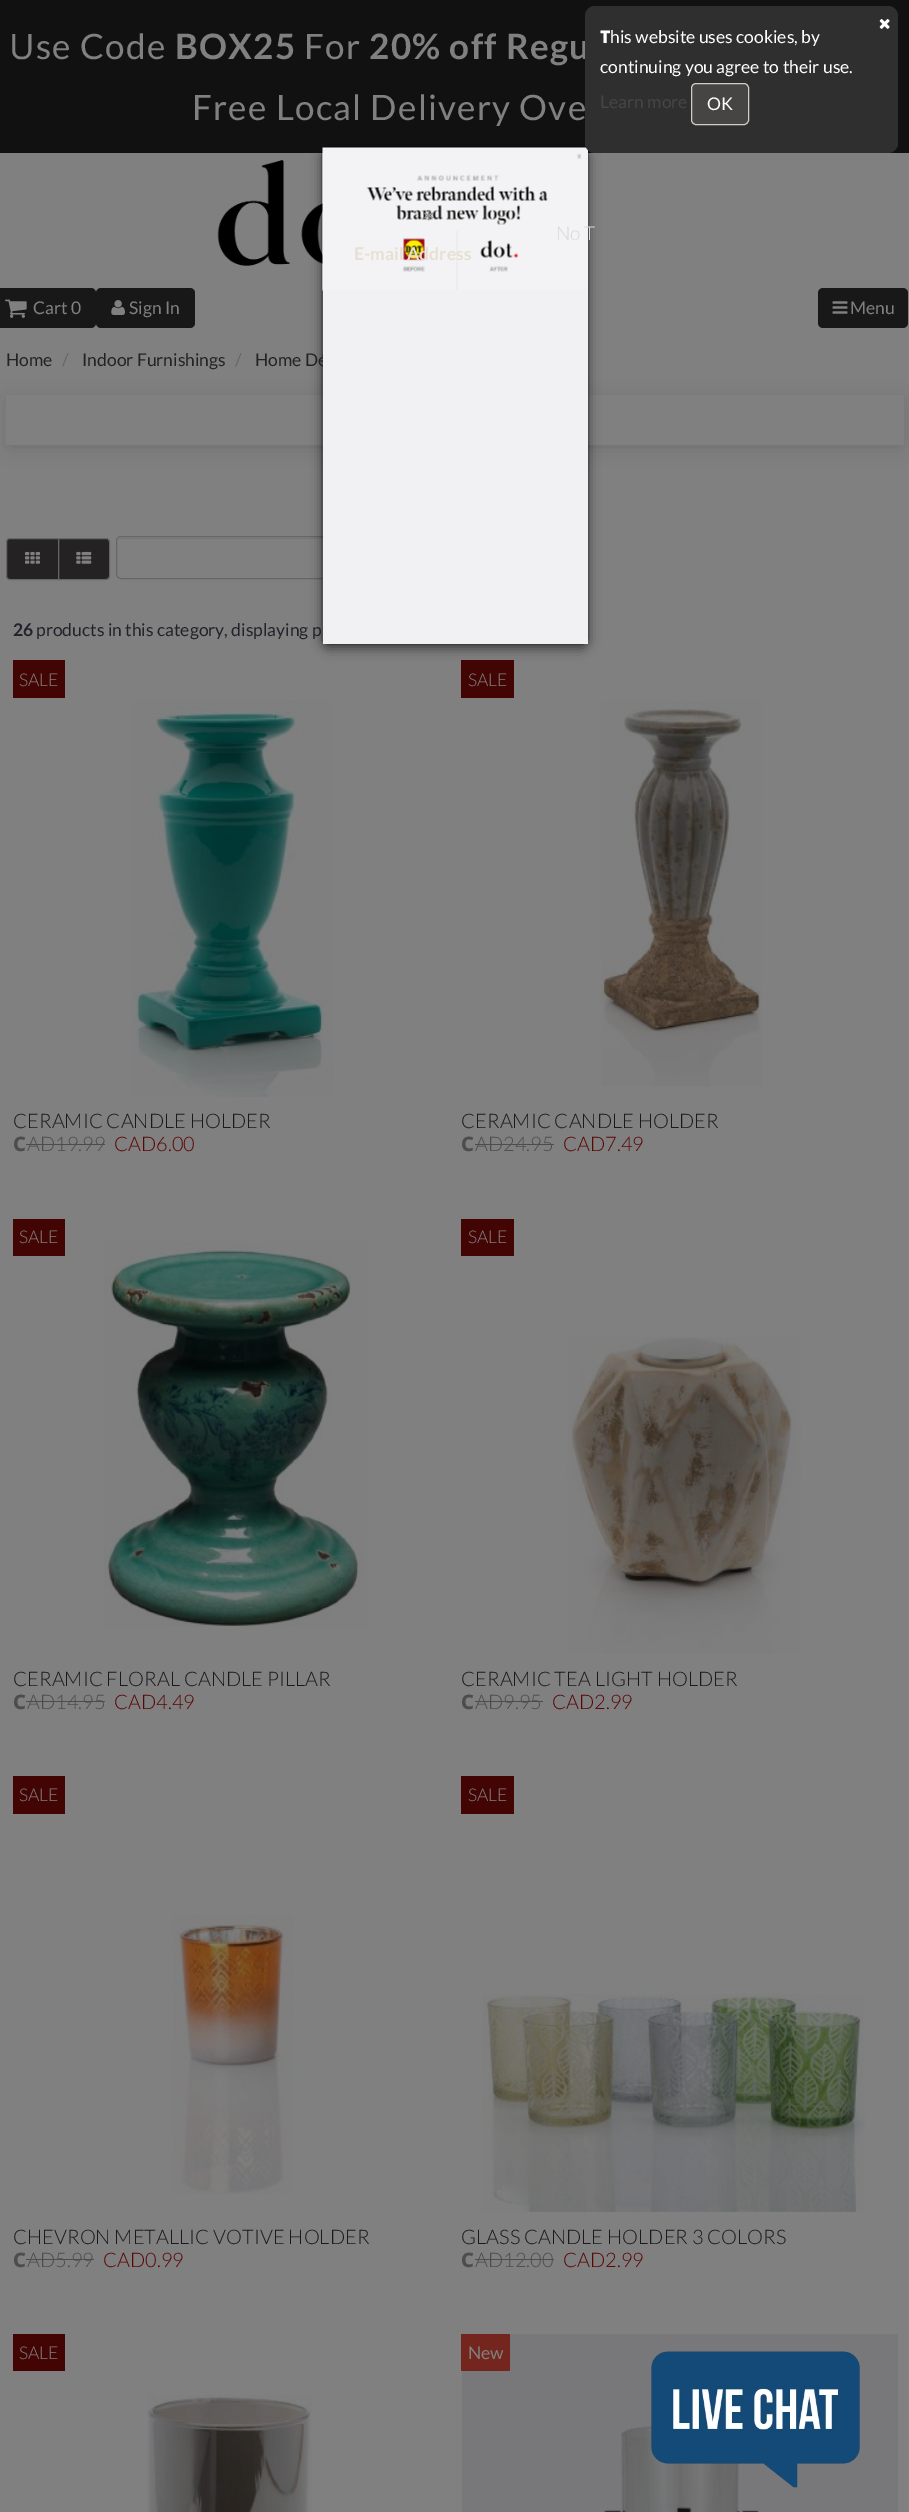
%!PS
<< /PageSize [909 2512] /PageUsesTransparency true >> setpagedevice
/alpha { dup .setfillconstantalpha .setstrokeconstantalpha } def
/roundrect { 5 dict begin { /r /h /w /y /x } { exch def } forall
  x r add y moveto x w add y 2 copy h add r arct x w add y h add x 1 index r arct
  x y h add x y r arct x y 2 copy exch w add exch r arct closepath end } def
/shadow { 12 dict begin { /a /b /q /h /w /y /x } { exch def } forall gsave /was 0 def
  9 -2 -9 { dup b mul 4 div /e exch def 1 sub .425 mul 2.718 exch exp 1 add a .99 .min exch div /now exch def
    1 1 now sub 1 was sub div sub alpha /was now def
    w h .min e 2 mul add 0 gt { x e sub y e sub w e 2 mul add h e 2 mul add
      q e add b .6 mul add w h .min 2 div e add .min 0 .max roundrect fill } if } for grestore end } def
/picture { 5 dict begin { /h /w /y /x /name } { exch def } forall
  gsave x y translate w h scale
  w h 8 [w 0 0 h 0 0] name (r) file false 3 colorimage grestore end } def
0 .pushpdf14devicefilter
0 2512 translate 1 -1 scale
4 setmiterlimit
0.502 setgray
0 0 909 2512 rectfill
0.067 setgray
0 0 909 153 rectfill
/Lato-Bold [35 0 0 -35 0 0] selectfont
0.502 setgray
369 59 moveto 1.25 0 (20% off Regu) ashow
(img2.rgb) 217 160 106 106 picture
0 setgray
9 401 892 45 0 10 0.15 shadow
0.502 setgray
6 395 898 50 rectfill
0.463 setgray
newpath 121 539 moveto 358 539 lineto 359 539 360 539 360 540 curveto 359 539 lineto 357 538 lineto 318 538 lineto 121 538 lineto 119 540 lineto closepath fill
0.4 setgray
116.5 536.5 246 42 4.5 roundrect stroke
0.263 0.016 0.016 setrgbcolor
461 660 53 38 rectfill
0 setgray
321 150 268 499 8 5.5 0.5 shadow
/Lato-Regular [17.5 0 0 -17.5 0 0] selectfont
0.141 0.133 0.133 setrgbcolor
255 366 moveto (Home Dé) show
0.133 0.133 0.169 setrgbcolor
36 636 moveto (products in this category, displaying p) show
0.2 alpha
0 setgray
321.5 146.5 267 498 7.5 roundrect stroke
1 alpha
0.945 0.945 0.953 setrgbcolor
323 149 265 495 rectfill
(img16.rgb) 322 147 266 144 picture
0.184 setgray
585 6 313 147 10 roundrect fill
(img1.rgb) 879 19 11 10 picture
/NotoSans-Black [17.5 0 0 -17.5 0 0] selectfont
1 setgray
600 43 moveto (T) show
/Lato-Regular [17.5 0 0 -17.5 0 0] selectfont
610 43 moveto (his website uses cookies, by) show
600 73 moveto (continuing you agree to their use.) show
0.278 0.267 0.267 setrgbcolor
600 108 moveto (Learn more) show
691.5 83.5 57 41 4.5 roundrect gsave fill grestore
0.8 setgray
stroke
1 setgray
707 110 moveto (OK) show
/NotoSans-Regular [35 0 0 -35 0 0] selectfont
0.502 setgray
9 59 moveto 1.25 0 (U) ashow
/Lato-Regular [35 0 0 -35 0 0] selectfont
36 59 moveto 1.25 0 (se Code) ashow
/Lato-Bold [35 0 0 -35 0 0] selectfont
175 59 moveto 1.25 0 (BOX25) ashow
/Lato-Regular [35 0 0 -35 0 0] selectfont
304 59 moveto 1.25 0 (For) ashow
192 120 moveto 1.25 0 (Free Local Delivery Ove) ashow
0.094 setgray
-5 288 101 40 5 roundrect fill
(img3.rgb) 5 299 22 19 picture
/Lato-Regular [17.5 0 0 -17.5 0 0] selectfont
0.502 setgray
33 314 moveto (Cart 0) show
0.094 setgray
96 288 99 40 5 roundrect fill
(img4.rgb) 111 300 14 15 picture
0.502 setgray
129 314 moveto (Sign In) show
0.094 setgray
818 288 90 40 5 roundrect fill
(img5.rgb) 832 301 16 13 picture
0.502 setgray
850 314 moveto (Menu) show
0.141 0.133 0.133 setrgbcolor
6 366 moveto (Home) show
0.4 setgray
62 366 moveto (/) show
0.141 0.133 0.133 setrgbcolor
82 366 moveto (Indoor Furnishings) show
0.4 setgray
235 366 moveto (/) show
0.141 0.133 0.133 setrgbcolor
newpath 10 538.5 moveto 58.5 538.5 lineto 58.5 579.5 lineto 10 579.5 lineto 8 579.5 6.5 578 6.5 576 curveto 6.5 542 lineto 6.5 540 8 538.5 10 538.5 curveto closepath gsave fill grestore
0.4 setgray
stroke
(img6.rgb) 25 551 15 13 picture
0.141 0.133 0.133 setrgbcolor
newpath 58.5 538.5 moveto 106 538.5 lineto 108 538.5 109.5 540 109.5 542 curveto 109.5 576 lineto 109.5 578 108 579.5 106 579.5 curveto 58.5 579.5 lineto closepath gsave fill grestore
0.4 setgray
stroke
(img7.rgb) 76 551 16 13 picture
/Lato-Bold [17.5 0 0 -17.5 0 0] selectfont
0.133 0.133 0.169 setrgbcolor
13 636 moveto (26) show
0.263 0.016 0.016 setrgbcolor
13 660 52 38 rectfill
/Lato-Light [17.5 0 0 -17.5 0 0] selectfont
0.502 setgray
19 686 moveto (SALE) show
(img8.rgb) 132 700 201 397 picture
/Lato-Light [20 0 0 -20 0 0] selectfont
0.102 setgray
13 1128 moveto (CERAMIC CANDLE HOLDER) show
/NotoSans-ExtraBold [20 0 0 -20 0 0] selectfont
0.302 setgray
13 1151 moveto (C) show
/Lato-Light [20 0 0 -20 0 0] selectfont
27 1151 moveto (AD19.99) show
26 1144 79 1 rectfill
0.357 0.02 0.02 setrgbcolor
114 1151 moveto (CAD6.00) show
/Lato-Light [17.5 0 0 -17.5 0 0] selectfont
0.502 setgray
468 686 moveto (SALE) show
(img9.rgb) 601 701 161 386 picture
/Lato-Light [20 0 0 -20 0 0] selectfont
0.102 setgray
461 1128 moveto (CERAMIC CANDLE HOLDER) show
/NotoSans-ExtraBold [20 0 0 -20 0 0] selectfont
0.302 setgray
461 1151 moveto (C) show
/Lato-Light [20 0 0 -20 0 0] selectfont
475 1151 moveto (AD24.95) show
475 1144 79 1 rectfill
0.357 0.02 0.02 setrgbcolor
563 1151 moveto (CAD7.49) show
0.263 0.016 0.016 setrgbcolor
13 1219 52 37 rectfill
/Lato-Light [17.5 0 0 -17.5 0 0] selectfont
0.502 setgray
19 1243 moveto (SALE) show
(img10.rgb) 104 1241 264 386 picture
/Lato-Light [20 0 0 -20 0 0] selectfont
0.102 setgray
13 1686 moveto (CERAMIC FLORAL CANDLE PILLAR) show
/NotoSans-ExtraBold [20 0 0 -20 0 0] selectfont
0.302 setgray
13 1709 moveto (C) show
/Lato-Light [20 0 0 -20 0 0] selectfont
27 1709 moveto (AD14.95) show
26 1701 79 1 rectfill
0.357 0.02 0.02 setrgbcolor
114 1709 moveto (CAD4.49) show
0.263 0.016 0.016 setrgbcolor
461 1219 53 37 rectfill
/Lato-Light [17.5 0 0 -17.5 0 0] selectfont
0.502 setgray
468 1243 moveto (SALE) show
(img11.rgb) 567 1337 234 317 picture
/Lato-Light [20 0 0 -20 0 0] selectfont
0.102 setgray
461 1686 moveto (CERAMIC TEA LIGHT HOLDER) show
/NotoSans-ExtraBold [20 0 0 -20 0 0] selectfont
0.302 setgray
461 1709 moveto (C) show
/Lato-Light [20 0 0 -20 0 0] selectfont
475 1709 moveto (AD9.95) show
475 1701 68 1 rectfill
0.357 0.02 0.02 setrgbcolor
552 1709 moveto (CAD2.99) show
0.263 0.016 0.016 setrgbcolor
13 1776 52 38 rectfill
/Lato-Light [17.5 0 0 -17.5 0 0] selectfont
0.502 setgray
19 1801 moveto (SALE) show
(img12.rgb) 173 1915 120 279 picture
/Lato-Light [20 0 0 -20 0 0] selectfont
0.102 setgray
13 2244 moveto (CHEVRON METALLIC VOTIVE HOLDER) show
/NotoSans-ExtraBold [20 0 0 -20 0 0] selectfont
0.302 setgray
13 2267 moveto (C) show
/Lato-Light [20 0 0 -20 0 0] selectfont
27 2267 moveto (AD5.99) show
26 2259 68 1 rectfill
0.357 0.02 0.02 setrgbcolor
103 2267 moveto (CAD0.99) show
0.263 0.016 0.016 setrgbcolor
461 1776 53 38 rectfill
/Lato-Light [17.5 0 0 -17.5 0 0] selectfont
0.502 setgray
468 1801 moveto (SALE) show
(img13.rgb) 482 1994 383 218 picture
/Lato-Light [20 0 0 -20 0 0] selectfont
0.102 setgray
461 2244 moveto (GLASS CANDLE HOLDER 3 COLORS) show
/NotoSans-ExtraBold [20 0 0 -20 0 0] selectfont
0.302 setgray
461 2267 moveto (C) show
/Lato-Light [20 0 0 -20 0 0] selectfont
475 2267 moveto (AD12.00) show
475 2259 79 1 rectfill
0.357 0.02 0.02 setrgbcolor
563 2267 moveto (CAD2.99) show
0.263 0.016 0.016 setrgbcolor
13 2334 52 37 rectfill
/Lato-Light [17.5 0 0 -17.5 0 0] selectfont
0.502 setgray
19 2359 moveto (SALE) show
(img14.rgb) 147 2395 165 117 picture
(img15.rgb) 462 2334 436 178 picture
0.455 0.149 0.118 setrgbcolor
461 2334 49 37 rectfill
/Lato-Regular [17.5 0 0 -17.5 0 0] selectfont
0.502 setgray
468 2359 moveto (New) show
/Lato-Bold [28 0 0 -28 0 0] selectfont
0.588 setgray
423 232 moveto (*) show
/Lato-Light [19 0 0 -19 0 0] selectfont
0.839 0.839 0.847 setrgbcolor
556 240 moveto (No T) show
/Lato-Bold [17.5 0 0 -17.5 0 0] selectfont
0.906 0.878 0.824 setrgbcolor
354 260 moveto (E-mail Address) show
(img17.rgb) 651 2351 209 137 picture
.poppdf14devicefilter showpage
